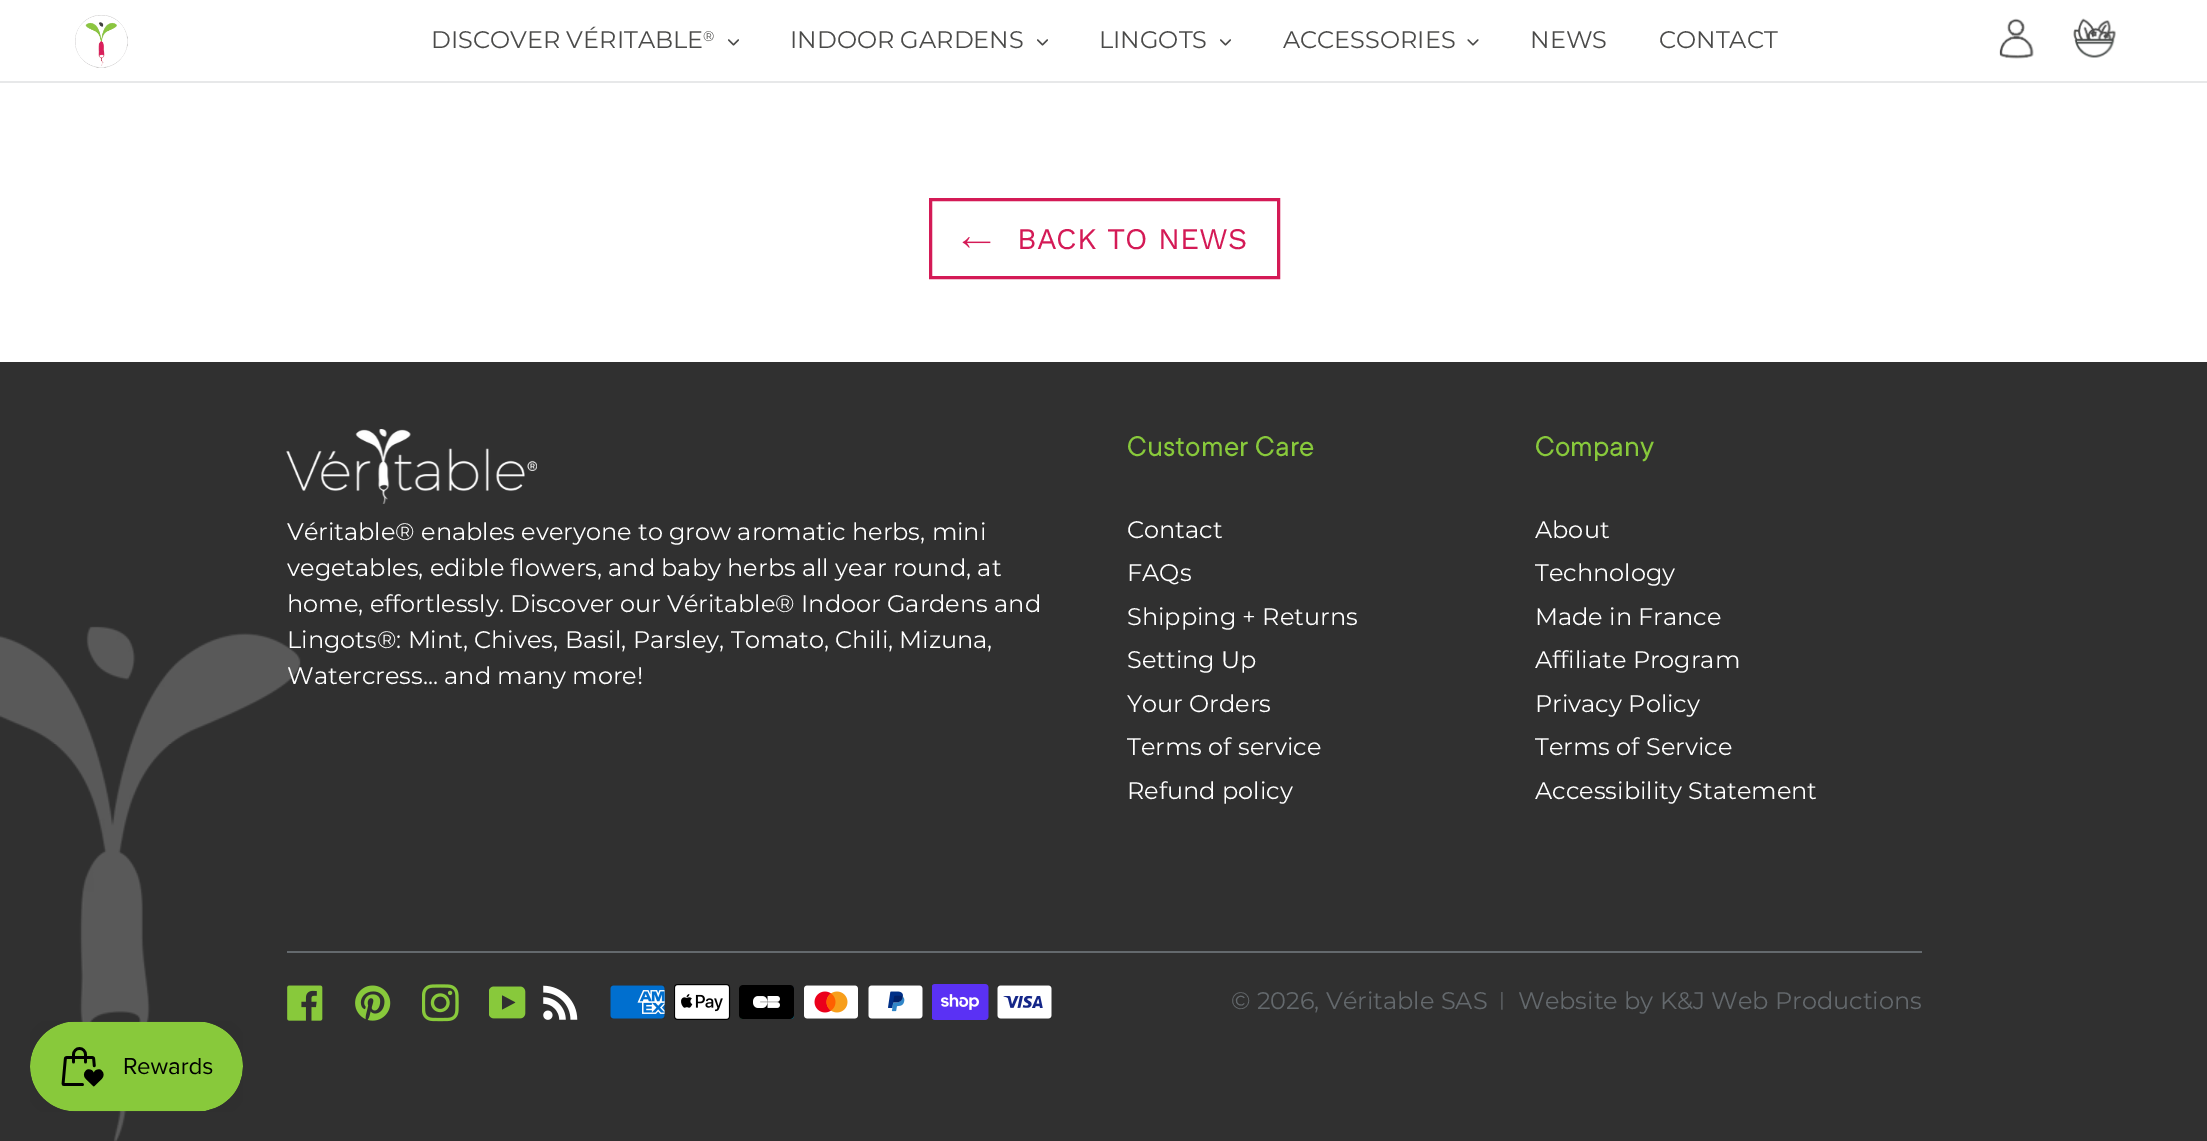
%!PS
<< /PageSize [2207 1141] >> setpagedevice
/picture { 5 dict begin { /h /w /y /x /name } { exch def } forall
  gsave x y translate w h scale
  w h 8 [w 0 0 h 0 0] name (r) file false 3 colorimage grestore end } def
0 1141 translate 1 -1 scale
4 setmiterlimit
1 setgray
0 0 2207 1141 rectfill
0.906 0.91 0.914 setrgbcolor
0 81 2207 2 rectfill
(img1.rgb) 75 15 53 53 picture
/Montserrat-Regular [24 0 0 -24 0 0] selectfont
0.29 0.29 0.286 setrgbcolor
431 48 moveto (DISCOVER VÉRITABLE) show
/Montserrat-Regular [14 0 0 -14 0 0] selectfont
703 41 moveto (®) show
(img2.rgb) 728 39 11 7 picture
/Montserrat-Regular [24 0 0 -24 0 0] selectfont
790 48 moveto (INDOOR GARDENS) show
(img2.rgb) 1037 39 11 7 picture
1099 48 moveto (LINGOTS) show
(img2.rgb) 1220 39 11 7 picture
1283 48 moveto (ACCESSORIES) show
(img3.rgb) 1467 39 12 7 picture
1530 48 moveto (NEWS) show
1659 48 moveto (CONTACT) show
(img4.rgb) 1999 18 35 41 picture
(img5.rgb) 2073 18 43 40 picture
0.831 0.102 0.337 setrgbcolor
3 setlinewidth
930.5 199.5 348 78 rectstroke
(img6.rgb) 962 237 29 11 picture
/WorkSans-Regular [30 0 0 -30 0 0] selectfont
1017 249 moveto (BACK TO NEWS) show
0.188 setgray
0 362 2207 779 rectfill
(img7.rgb) 0 626 301 515 picture
(img8.rgb) 286 429 251 75 picture
/Montserrat-Regular [24 0 0 -24 0 0] selectfont
1 setgray
287 540 moveto (Véritable® enables everyone to grow aromatic herbs, mini) show
287 576 moveto (vegetables, edible flowers, and baby herbs all year round, at) show
287 612 moveto (home, effortlessly. Discover our Véritable® Indoor Gardens and) show
287 648 moveto (Lingots®: Mint, Chives, Basil, Parsley, Tomato, Chili, Mizuna,) show
287 684 moveto (Watercress... and many more!) show
/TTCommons-Regular [31.5 0 0 -31.5 0 0] selectfont
0.533 0.788 0.231 setrgbcolor
1127 456 moveto (Customer Care) show
/Montserrat-Regular [24 0 0 -24 0 0] selectfont
1 setgray
1127 538 moveto (Contact) show
1127 581 moveto (FAQs) show
1127 625 moveto (Shipping + Returns) show
1127 668 moveto (Setting Up) show
1127 712 moveto (Your Orders) show
1127 755 moveto (Terms of service) show
1127 799 moveto (Refund policy) show
/TTCommons-Regular [31.5 0 0 -31.5 0 0] selectfont
0.533 0.788 0.231 setrgbcolor
1535 456 moveto (Company) show
/Montserrat-Regular [24 0 0 -24 0 0] selectfont
1 setgray
1535 538 moveto (About) show
1535 581 moveto (Technology) show
1535 625 moveto (Made in France) show
1535 668 moveto (Affiliate Program) show
1535 712 moveto (Privacy Policy) show
1535 755 moveto (Terms of Service) show
1535 799 moveto (Accessibility Statement) show
0.392 0.412 0.427 setrgbcolor
287 951 1635 2 rectfill
(img9.rgb) 287 985 36 36 picture
(img10.rgb) 355 985 36 36 picture
(img11.rgb) 422 984 37 38 picture
(img12.rgb) 489 986 37 33 picture
(img13.rgb) 543 985 35 35 picture
(img14.rgb) 610 985 55 34 picture
(img15.rgb) 674 984 57 36 picture
(img16.rgb) 739 985 55 34 picture
(img17.rgb) 804 985 54 34 picture
(img18.rgb) 868 985 55 34 picture
(img19.rgb) 932 984 57 36 picture
(img20.rgb) 997 985 55 34 picture
1231 1009 moveto (© 2026, Véritable SAS) show
/Montserrat-Regular [19 0 0 -19 0 0] selectfont
1499 1006 moveto (|) show
/Montserrat-Regular [24 0 0 -24 0 0] selectfont
1518 1009 moveto (Website by K&J Web Productions) show
(img21.rgb) 30 1021 213 91 picture
showpage
